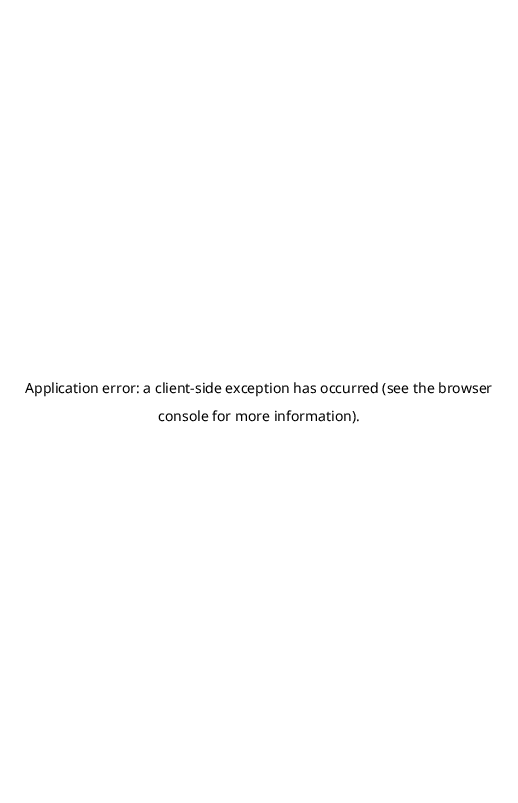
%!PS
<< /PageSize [518 803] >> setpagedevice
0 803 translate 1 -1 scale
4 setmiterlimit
1 setgray
0 0 518 803 rectfill
/NotoSans-Regular [14 0 0 -14 0 0] selectfont
0 setgray
25 393 moveto (Application error: a client-side exception has occurred \(see the browser) show
158 421 moveto (console for more information\).) show
showpage
